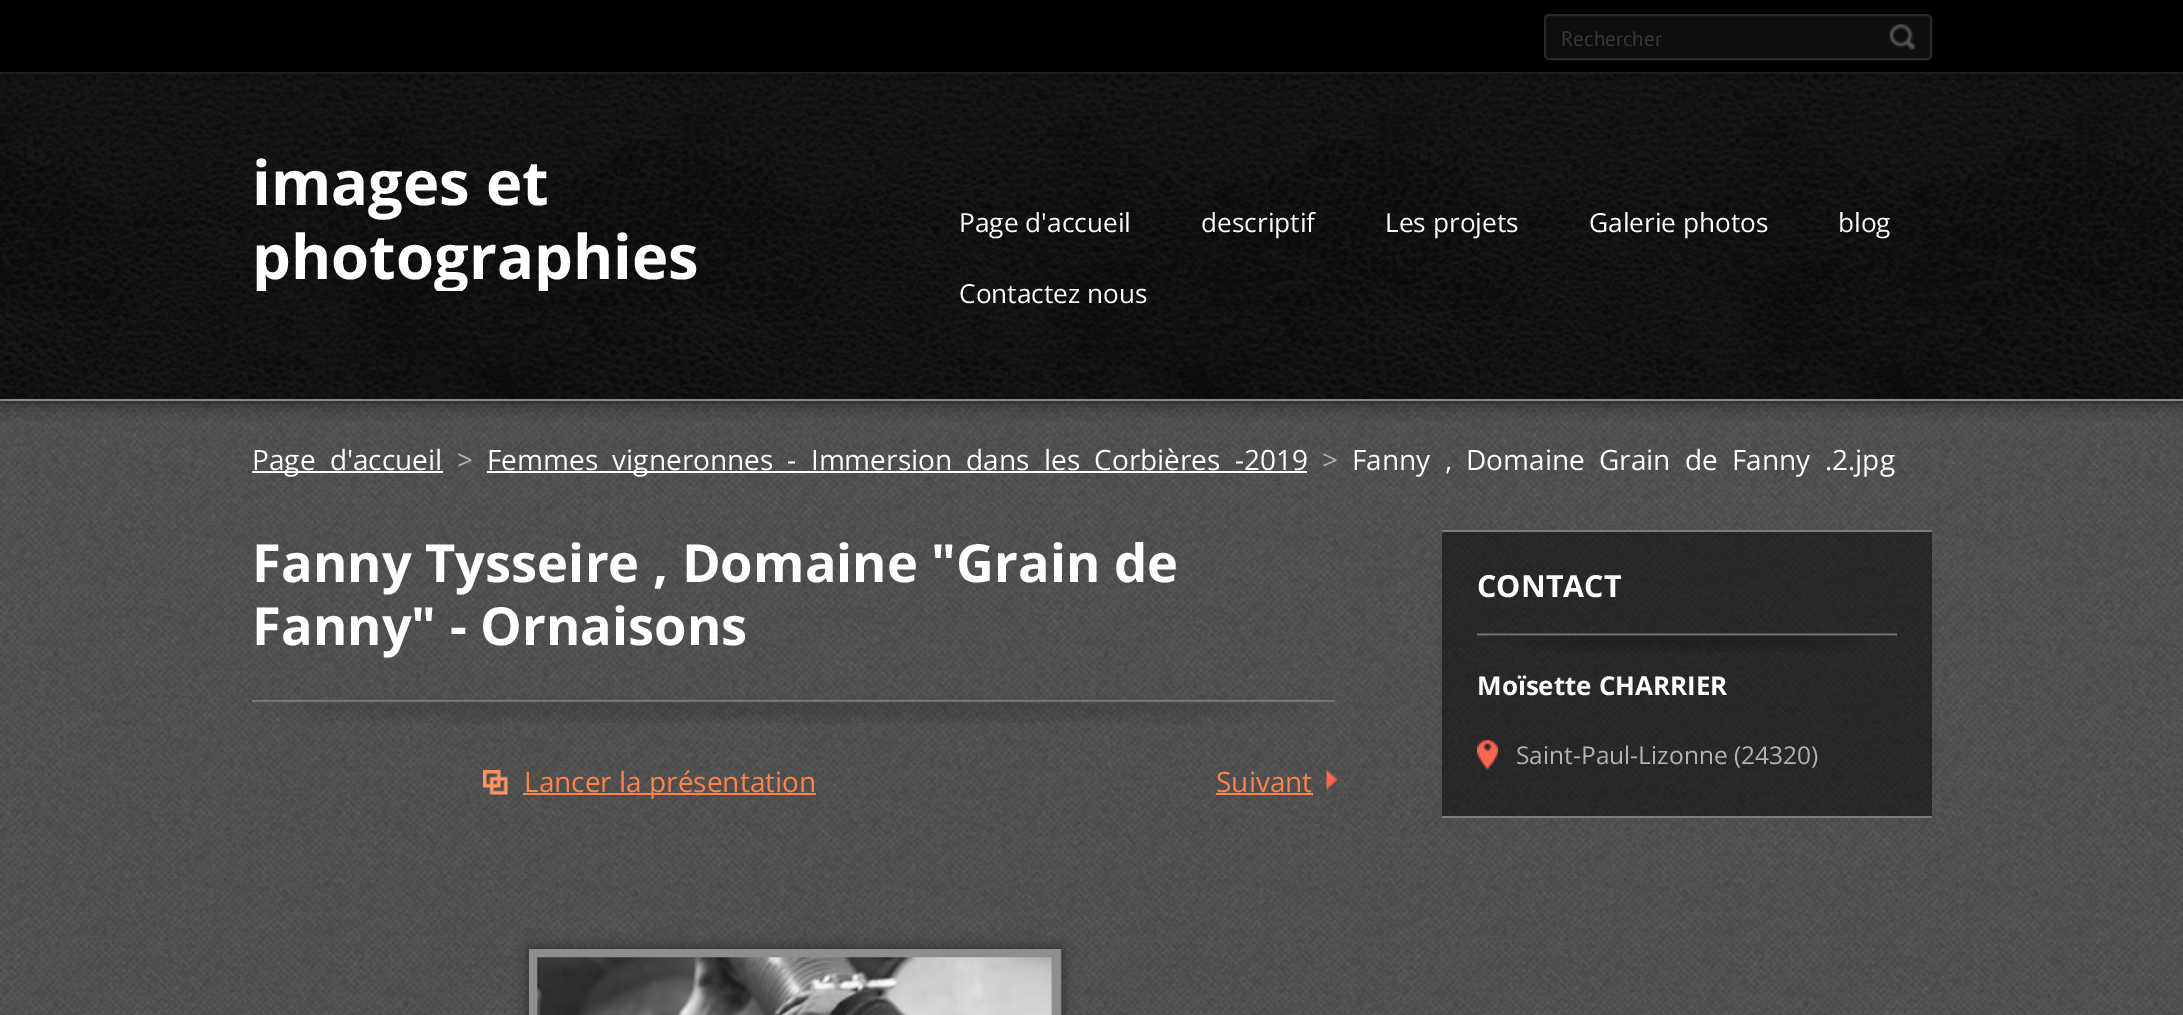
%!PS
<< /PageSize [2183 1015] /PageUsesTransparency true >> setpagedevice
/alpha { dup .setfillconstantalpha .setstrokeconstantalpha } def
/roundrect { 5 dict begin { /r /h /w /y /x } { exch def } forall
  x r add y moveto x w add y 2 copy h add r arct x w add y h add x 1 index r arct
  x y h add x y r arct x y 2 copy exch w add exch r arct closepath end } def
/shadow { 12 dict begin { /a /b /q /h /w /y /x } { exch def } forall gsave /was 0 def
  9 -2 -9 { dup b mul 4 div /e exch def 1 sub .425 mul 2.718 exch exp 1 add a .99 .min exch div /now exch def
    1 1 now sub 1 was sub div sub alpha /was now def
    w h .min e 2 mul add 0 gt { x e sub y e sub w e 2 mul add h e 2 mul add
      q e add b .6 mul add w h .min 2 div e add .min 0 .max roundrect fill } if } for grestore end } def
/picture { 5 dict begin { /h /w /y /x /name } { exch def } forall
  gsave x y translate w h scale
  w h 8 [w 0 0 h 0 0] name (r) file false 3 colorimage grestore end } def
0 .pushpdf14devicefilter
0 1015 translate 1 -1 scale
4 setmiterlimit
1 setgray
0 0 2183 1015 rectfill
(img1.rgb) 0 401 2183 614 picture
0 setgray
0 0 2183 72 rectfill
0.188 setgray
0 72 2183 2 rectfill
0 setgray
0 74 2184 327 0 9 0.7 shadow
0.055 setgray
1545 15 386 44 4 roundrect gsave fill grestore
0.161 setgray
2 setlinewidth
stroke
/PTSans-Regular [21 0 0 -21 0 0] selectfont
0.22 setgray
1561 46 moveto (Rechercher) show
(img2.rgb) 1889 24 26 26 picture
(img3.rgb) 0 73 2183 326 picture
0.541 setgray
0 399 2183 2 rectfill
/OpenSans-Bold [61.5 0 0 -61.5 0 0] selectfont
1 setgray
252 205 moveto (images et) show
gsave
252 144 588 147 rectclip
252 279 moveto (photographies) show
grestore
/OpenSans-Regular [26.25 0 0 -26.25 0 0] selectfont
959 232 moveto (Page d'accueil) show
1201 232 moveto (descriptif) show
1385 232 moveto (Les projets) show
1589 232 moveto (Galerie photos) show
1838 232 moveto (blog) show
959 303 moveto (Contactez nous) show
252 471 191 2 rectfill
/OpenSans-Regular [28 0 0 -28 0 0] selectfont
252 470 moveto 7 0 32 (Page d'accueil) widthshow
0.702 setgray
457 470 moveto (>) show
1 setgray
487 471 820 2 rectfill
487 470 moveto 7 0 32 (Femmes vigneronnes - Immersion dans les Corbières) widthshow
1235 470 moveto (-2019) show
0.702 setgray
1322 470 moveto (>) show
1 setgray
1352 470 moveto 7 0 32 (Fanny , Domaine Grain de Fanny .2.jpg) widthshow
(img4.rgb) 252 700 1084 23 picture
/OpenSans-Bold [52.5 0 0 -52.5 0 0] selectfont
252 582 moveto (Fanny Tysseire , Domaine "Grain de) show
252 645 moveto (Fanny" - Ornaisons) show
(img5.rgb) 483 770 25 25 picture
1 0.518 0.29 setrgbcolor
523 793 293 2 rectfill
/OpenSans-Regular [28 0 0 -28 0 0] selectfont
524 792 moveto (Lancer la présentation) show
(img6.rgb) 1326 770 11 20 picture
1216 792 moveto (Suivant) show
1216 793 97 2 rectfill
0 setgray
529 949 532 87 0 7 0.5 shadow
0.557 setgray
9 setlinewidth
533.5 953.5 523 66 rectstroke
(img7.rgb) 537 957 515 58 picture
0.5 alpha
0 setgray
1442 532 490 284 rectfill
1 alpha
0.486 setgray
1442 530 490 2 rectfill
1442 816 490 2 rectfill
(img8.rgb) 1477 633 420 19 picture
/OpenSans-Bold [30.5 0 0 -30.5 0 0] selectfont
1 setgray
1477 597 moveto (CONTACT) show
/OpenSans-Bold [26 0 0 -26 0 0] selectfont
1477 695 moveto (Moïsette CHARRIER) show
(img9.rgb) 1477 740 21 30 picture
/OpenSans-Regular [24.5 0 0 -24.5 0 0] selectfont
0.702 setgray
1516 764 moveto (Saint-Paul-Lizonne \(24320\)) show
.poppdf14devicefilter showpage
